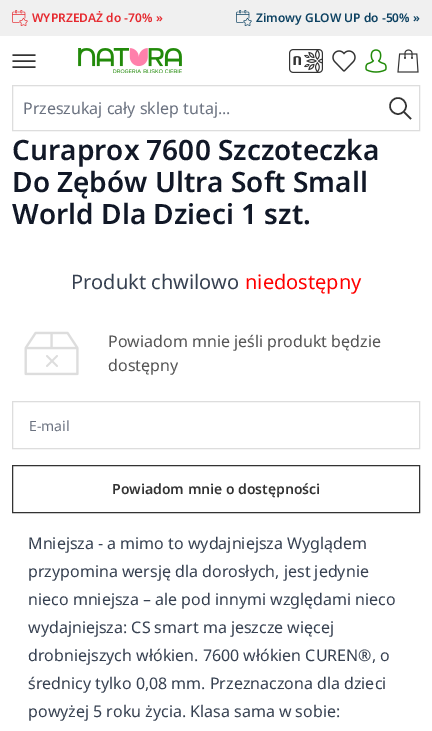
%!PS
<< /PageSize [432 731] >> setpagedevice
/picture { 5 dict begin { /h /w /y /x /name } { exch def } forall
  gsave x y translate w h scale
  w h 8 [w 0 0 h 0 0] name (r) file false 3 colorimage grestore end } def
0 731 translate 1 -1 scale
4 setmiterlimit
1 setgray
0 0 432 731 rectfill
0.941 setgray
0 0 432 36 rectfill
(img1.rgb) 12 10 16 16 picture
/NotoSans-SemiBold [12 0 0 -12 0 0] selectfont
0.902 0.161 0.184 setrgbcolor
32 22 moveto (WYPRZEDAŻ do -70% ») show
(img2.rgb) 236 10 16 16 picture
0.047 0.255 0.38 setrgbcolor
256 22 moveto (Zimowy GLOW UP do -50% ») show
0.2 setgray
1.4 setlinewidth
newpath 12.5 55 moveto 35.5 55 lineto 12.5 61 moveto 35.5 61 lineto 12.5 67 moveto 35.5 67 lineto stroke
(img3.rgb) 78 48 104 25 picture
(img4.rgb) 289 49 34 24 picture
(img5.rgb) 332 50 24 22 picture
(img6.rgb) 365 49 22 24 picture
(img7.rgb) 397 49 22 24 picture
0.867 setgray
1 setlinewidth
12.5 85.5 407 45 rectstroke
/NotoSans-Regular [16 0 0 -16 0 0] selectfont
0.42 0.447 0.502 setrgbcolor
23 114 moveto (Przeszukaj cały sklep tutaj...) show
0.2 setgray
1.5 setlinewidth
2 setlinejoin
newpath 404 112 moveto 411 119 lineto stroke
0 setlinejoin
newpath 398 106 8 0 360 arc closepath stroke
/NotoSans-SemiBold [28 0 0 -28 0 0] selectfont
0.067 0.094 0.153 setrgbcolor
12 160 moveto (Curaprox 7600 Szczoteczka) show
12 192 moveto (Do Zębów Ultra Soft Small) show
12 224 moveto (World Dla Dzieci 1 szt.) show
/NotoSans-Regular [20 0 0 -20 0 0] selectfont
0.216 0.255 0.318 setrgbcolor
71 289 moveto (Produkt chwilowo) show
1 0 0 setrgbcolor
245 289 moveto (niedostępny) show
(img8.rgb) 24 331 55 45 picture
/NotoSans-Regular [16 0 0 -16 0 0] selectfont
0.333 setgray
108 347 moveto (Powiadom mnie jeśli produkt będzie) show
108 371 moveto (dostępny) show
0.867 setgray
1 setlinewidth
12.5 401.5 407 47 rectstroke
/NotoSans-Regular [14 0 0 -14 0 0] selectfont
0.42 0.447 0.502 setrgbcolor
29 431 moveto (E-mail) show
0.2 setgray
12.5 465.5 407 47 rectstroke
/NotoSans-SemiBold [14 0 0 -14 0 0] selectfont
112 494 moveto (Powiadom mnie o dostępności) show
/NotoSans-Regular [16 0 0 -16 0 0] selectfont
0.216 0.255 0.318 setrgbcolor
28 549 moveto (Mniejsza - a mimo to wydajniejsza Wyglądem) show
28 577 moveto (przypomina wersję dla dorosłych, jest jedynie) show
28 605 moveto (nieco mniejsza – ale pod innymi względami nieco) show
28 633 moveto (wydajniejsza: CS smart ma jeszcze więcej) show
28 661 moveto (drobniejszych włókien. 7600 włókien CUREN®, o) show
28 689 moveto (średnicy tylko 0,08 mm. Przeznaczona dla dzieci) show
28 717 moveto (powyżej 5 roku życia. Klasa sama w sobie:) show
showpage
